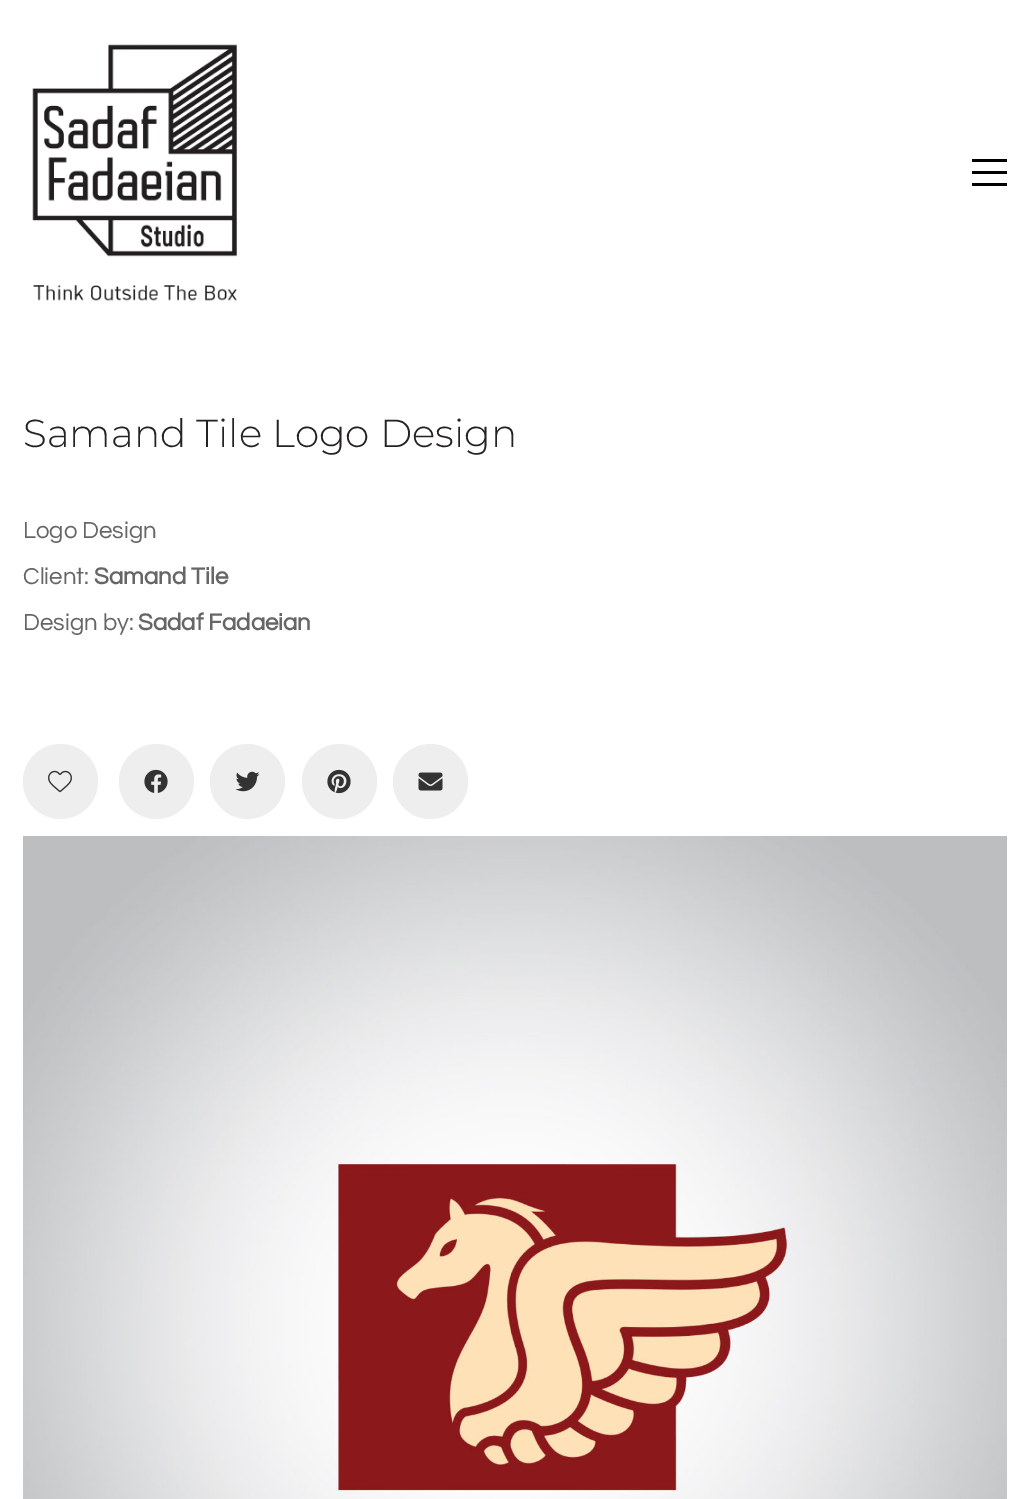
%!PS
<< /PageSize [1028 1499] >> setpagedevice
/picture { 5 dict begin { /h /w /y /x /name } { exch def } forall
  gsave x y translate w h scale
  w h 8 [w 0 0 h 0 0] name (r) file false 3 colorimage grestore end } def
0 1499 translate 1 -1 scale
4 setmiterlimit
1 setgray
0 0 1028 1499 rectfill
(img1.rgb) 32 44 206 257 picture
0 setgray
972 159 35 3 rectfill
972 171 35 3 rectfill
972 183 35 3 rectfill
/Montserrat-Light [39 0 0 -39 0 0] selectfont
0.141 0.137 0.129 setrgbcolor
23 447 moveto (Samand Tile Logo Design) show
/Questrial-Regular [24 0 0 -24 0 0] selectfont
0.4 setgray
23 538 moveto (Logo Design) show
23 584 moveto (Client:) show
/Questrial-Bold [24 0 0 -24 0 0] selectfont
94 584 moveto (Samand Tile) show
/Questrial-Regular [24 0 0 -24 0 0] selectfont
23 630 moveto (Design by:) show
/Questrial-Bold [24 0 0 -24 0 0] selectfont
138 630 moveto (Sadaf Fadaeian) show
0.933 setgray
newpath 60.5 781.5 37.5 0 360 arc closepath fill
(img2.rgb) 48 770 24 23 picture
newpath 156.5 781.5 37.5 0 360 arc closepath fill
(img3.rgb) 144 769 24 24 picture
newpath 247.5 781.5 37.5 0 360 arc closepath fill
(img4.rgb) 235 771 25 21 picture
newpath 339.5 781.5 37.5 0 360 arc closepath fill
(img5.rgb) 327 769 24 25 picture
newpath 430.5 781.5 37.5 0 360 arc closepath fill
(img6.rgb) 418 772 25 19 picture
(img7.rgb) 23 836 984 663 picture
showpage
